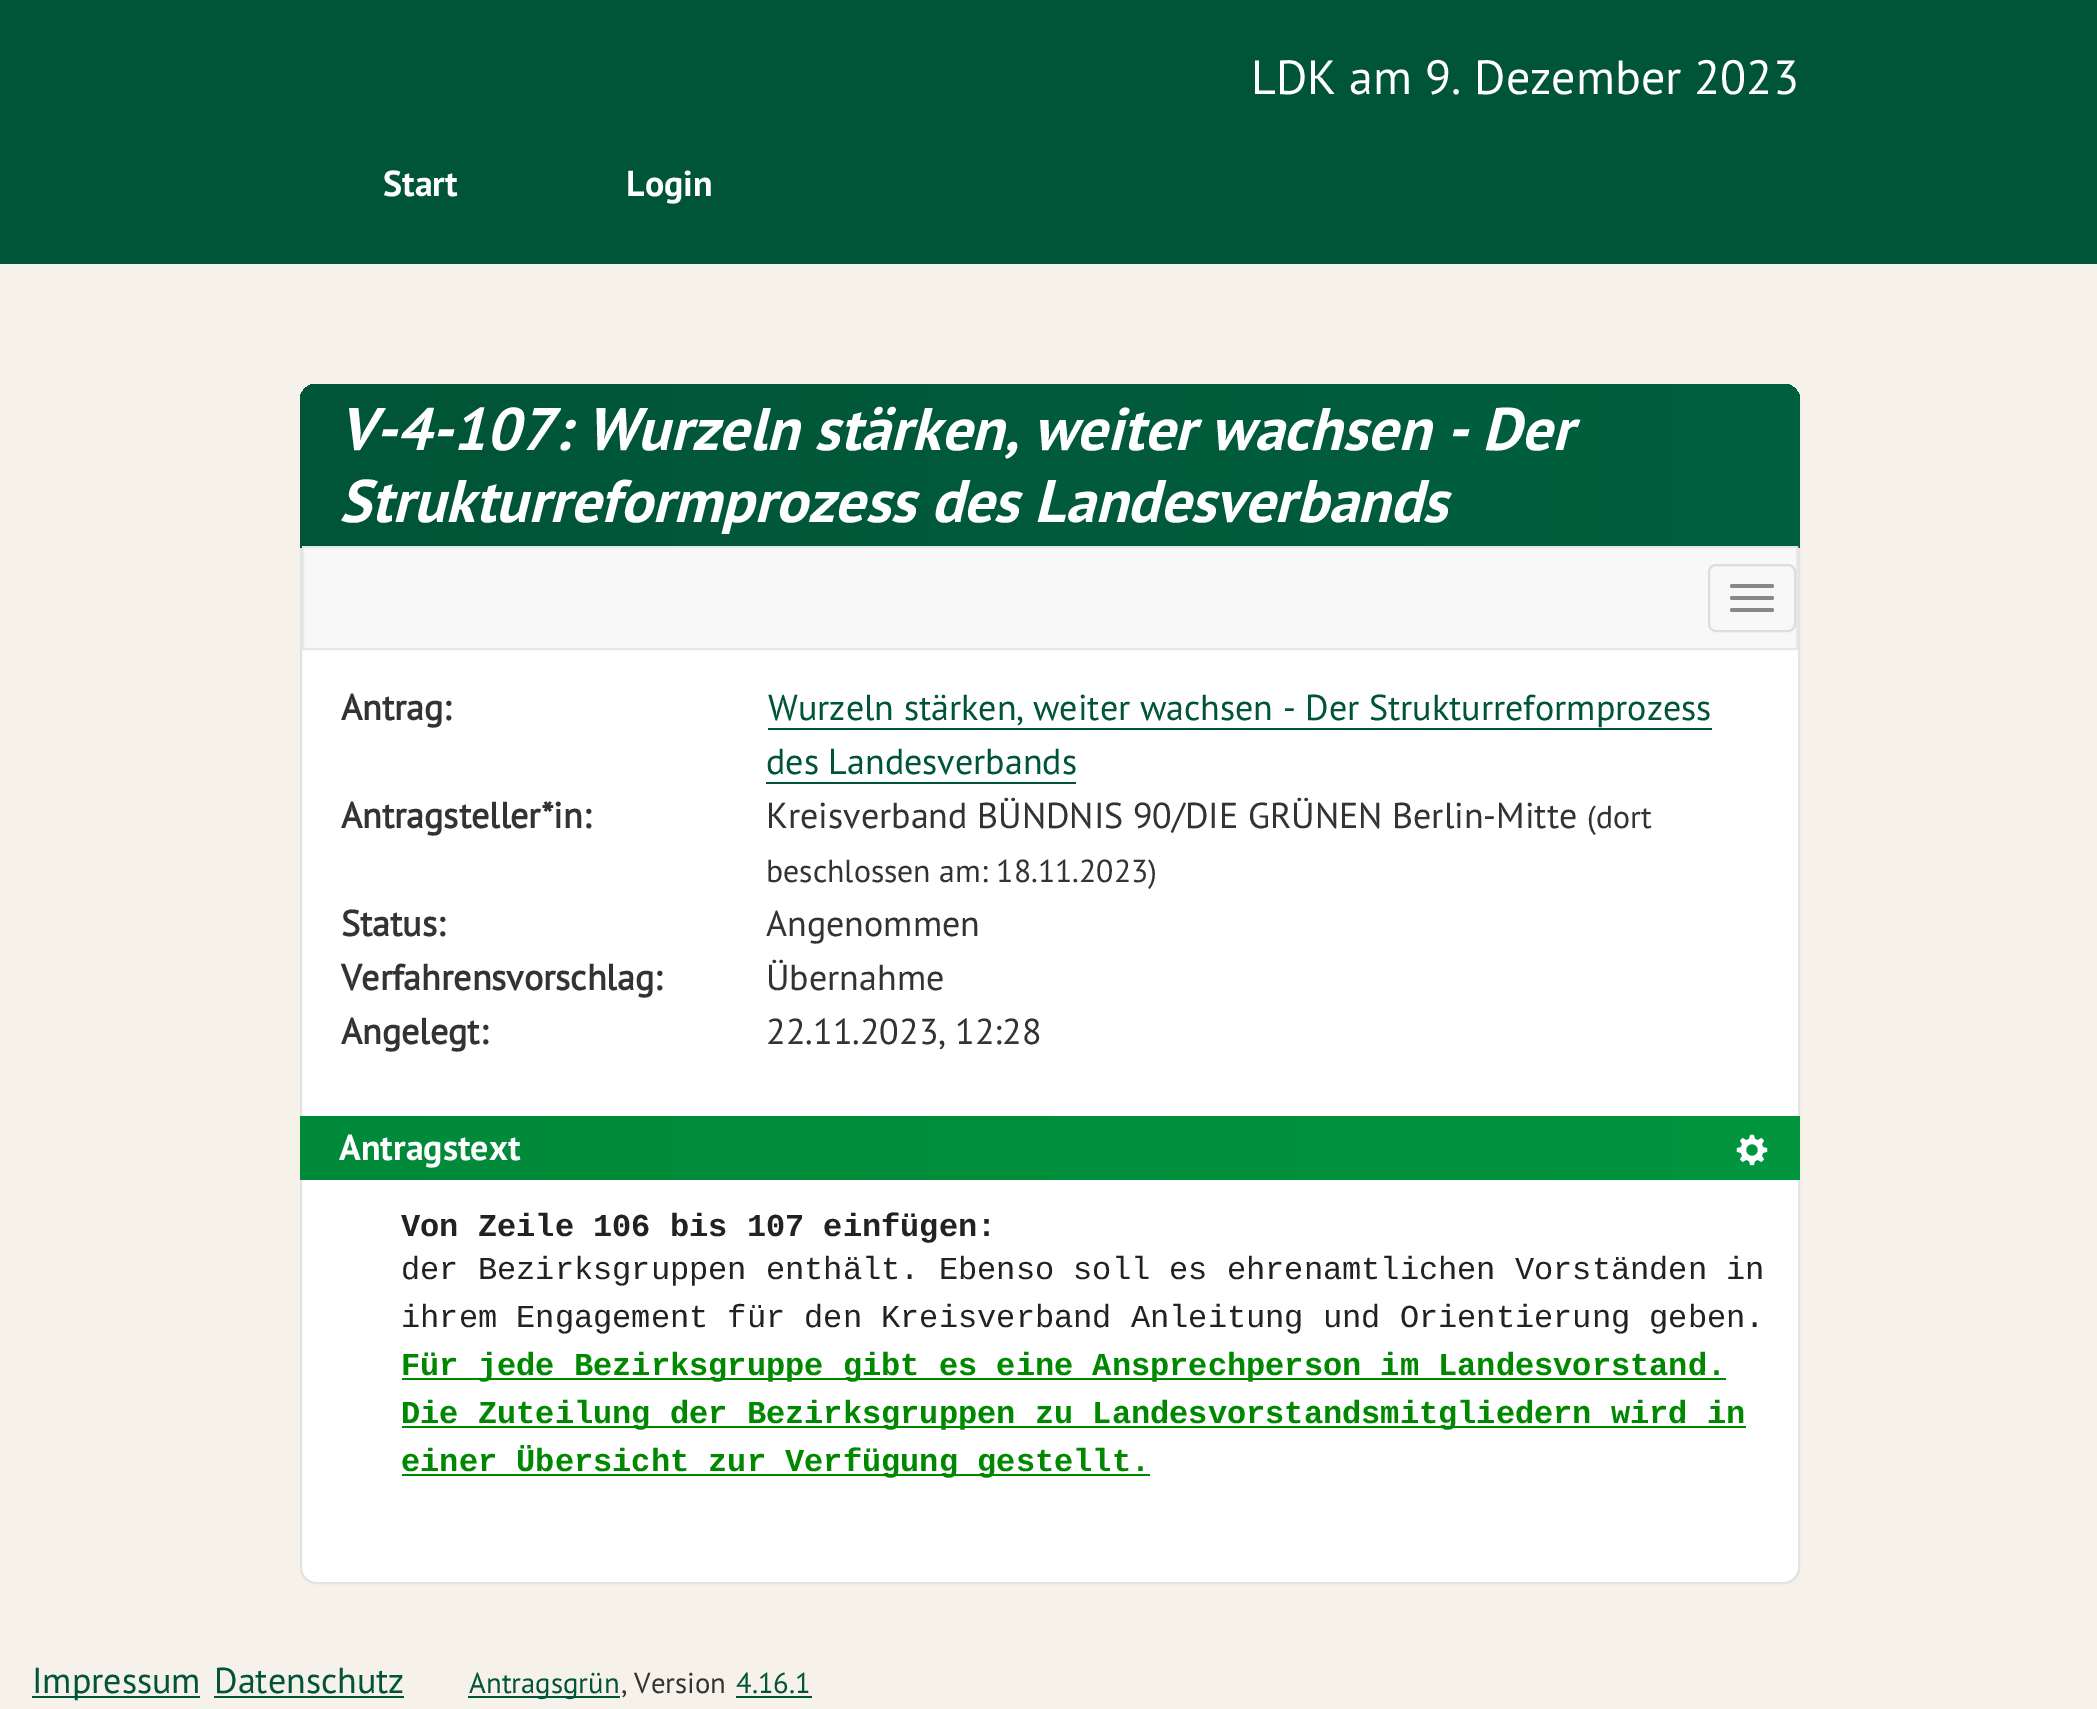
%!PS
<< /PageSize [2097 1709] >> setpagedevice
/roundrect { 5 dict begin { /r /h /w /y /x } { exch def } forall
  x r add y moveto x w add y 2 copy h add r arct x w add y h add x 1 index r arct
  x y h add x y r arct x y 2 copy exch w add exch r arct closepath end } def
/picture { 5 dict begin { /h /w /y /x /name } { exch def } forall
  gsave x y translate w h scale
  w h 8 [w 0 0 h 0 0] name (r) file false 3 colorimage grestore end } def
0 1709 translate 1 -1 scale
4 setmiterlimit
0.965 0.945 0.914 setrgbcolor
0 0 2097 1709 rectfill
0 0.329 0.216 setrgbcolor
0 0 2097 264 rectfill
/PTSans-Regular [48 0 0 -48 0 0] selectfont
1 setgray
1251 94 moveto (LDK am 9. Dezember 2023) show
/PTSans-Bold [36 0 0 -36 0 0] selectfont
383 196 moveto (Start) show
626 196 moveto (Login) show
301 385 1498 1198 15 roundrect gsave fill grestore
0.89 setgray
2 setlinewidth
stroke
gsave newpath 316 384 moveto 1784 384 lineto 1793 384 1800 391 1800 400 curveto 1800 548 lineto 300 548 lineto 300 400 lineto 300 391 307 384 316 384 curveto closepath clip newpath
<< /ShadingType 2 /ColorSpace /DeviceRGB /Coords [300 466 1800 466] /Extend [true true] /Function << /FunctionType 2 /Domain [0 1] /C0 [0 0.329 0.216] /C1 [0 0.376 0.247] /N 1 >> >> shfill grestore
/PTSans-BoldItalic [60 0 0 -60 0 0] selectfont
1 setgray
339 450 moveto (V-4-107: Wurzeln stärken, weiter wachsen - Der) show
339 522 moveto (Strukturreformprozess des Landesverbands) show
0.973 setgray
newpath 303 547 moveto 1797 547 lineto 1797 649 lineto 303 649 lineto closepath gsave fill grestore
0.906 setgray
stroke
0.867 setgray
1709 565 86 66 7 roundrect stroke
0.533 setgray
1730 584 44 4 2 roundrect fill
1730 596 44 4 2 roundrect fill
1730 608 44 4 2 roundrect fill
/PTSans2-Bold [36 0 0 -36 0 0] selectfont
0.2 setgray
341 720 moveto (Antrag:) show
/PTSans-Regular [36 0 0 -36 0 0] selectfont
0 0.329 0.216 setrgbcolor
768 720 moveto (Wurzeln stärken, weiter wachsen - Der Strukturreformprozess) show
768 728 944 2 rectfill
766 774 moveto (des Landesverbands) show
766 782 310 2 rectfill
/PTSans2-Bold [36 0 0 -36 0 0] selectfont
0.2 setgray
341 828 moveto (Antragsteller*in:) show
/PTSans-Regular [36 0 0 -36 0 0] selectfont
766 828 moveto (Kreisverband BÜNDNIS 90/DIE GRÜNEN Berlin-Mitte) show
/PTSans-Regular [31.75 0 0 -31.75 0 0] selectfont
1587 828 moveto (\(dort) show
766 882 moveto (beschlossen am: 18.11.2023\)) show
/PTSans2-Bold [36 0 0 -36 0 0] selectfont
341 936 moveto (Status:) show
/PTSans-Regular [36 0 0 -36 0 0] selectfont
766 936 moveto (Angenommen) show
/PTSans2-Bold [36 0 0 -36 0 0] selectfont
341 990 moveto (Verfahrensvorschlag:) show
/PTSans-Regular [36 0 0 -36 0 0] selectfont
766 990 moveto (Übernahme) show
/PTSans2-Bold [36 0 0 -36 0 0] selectfont
341 1044 moveto (Angelegt:) show
/PTSans-Regular [36 0 0 -36 0 0] selectfont
766 1044 moveto (22.11.2023, 12:28) show
gsave newpath 300 1116 moveto 1800 1116 lineto 1800 1180 lineto 300 1180 lineto closepath clip newpath
<< /ShadingType 2 /ColorSpace /DeviceRGB /Coords [300 1148 1800 1148] /Extend [true true] /Function << /FunctionType 2 /Domain [0 1] /C0 [0 0.537 0.224] /C1 [0 0.584 0.243] /N 1 >> >> shfill grestore
/PTSans-Bold [36 0 0 -36 0 0] selectfont
1 setgray
339 1160 moveto (Antragstext) show
(img1.rgb) 1736 1134 32 32 picture
/LiberationMono-Bold [32 0 0 -32 0 0] selectfont
0.133 setgray
401 1236 moveto (Von Zeile 106 bis 107 einfügen:) show
/LiberationMono-Regular [32 0 0 -32 0 0] selectfont
401 1279 moveto (der Bezirksgruppen enthält. Ebenso soll es ehrenamtlichen Vorständen in) show
401 1327 moveto (ihrem Engagement für den Kreisverband Anleitung und Orientierung geben.) show
0 0.533 0 setrgbcolor
402 1378 1324 2 rectfill
/LiberationMono-Bold [32 0 0 -32 0 0] selectfont
401 1375 moveto (Für jede Bezirksgruppe gibt es eine Ansprechperson im Landesvorstand.) show
402 1426 1344 2 rectfill
401 1423 moveto (Die Zuteilung der Bezirksgruppen zu Landesvorstandsmitgliedern wird in) show
402 1474 748 2 rectfill
401 1471 moveto (einer Übersicht zur Verfügung gestellt.) show
0 0.329 0.216 setrgbcolor
32 1696 168 2 rectfill
/PTSans-Regular [36 0 0 -36 0 0] selectfont
32 1693 moveto (Impressum) show
214 1693 moveto (Datenschutz) show
214 1696 190 2 rectfill
468 1696 152 2 rectfill
/PTSans-Regular [28.75 0 0 -28.75 0 0] selectfont
469 1693 moveto (Antragsgrün) show
0.2 setgray
621 1693 moveto (, Version) show
0 0.329 0.216 setrgbcolor
736 1693 moveto (4.16.1) show
736 1696 76 2 rectfill
showpage
